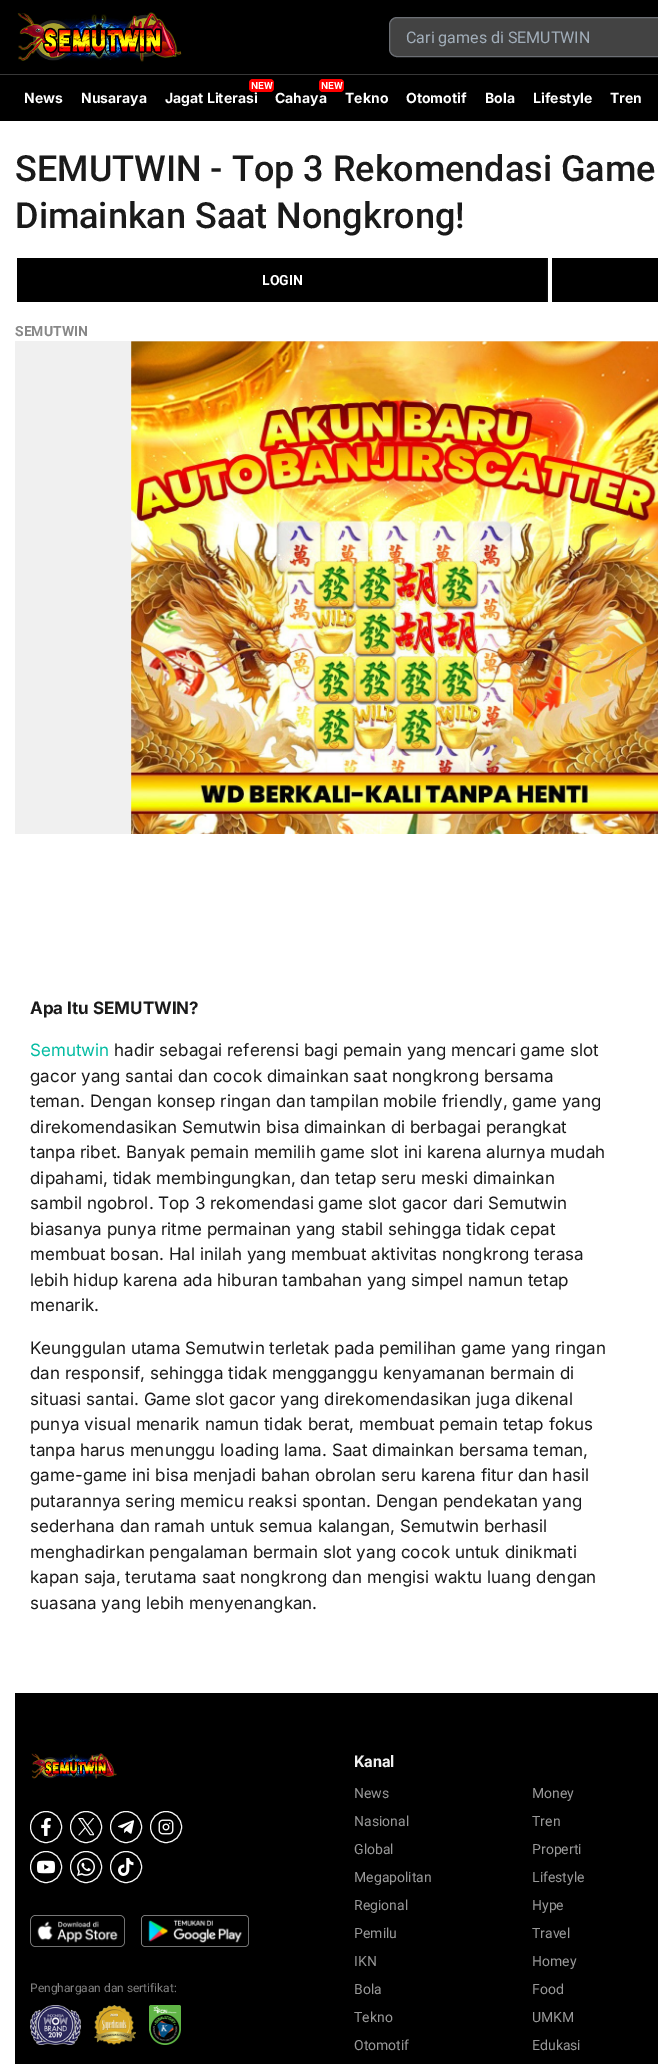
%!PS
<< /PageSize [658 2064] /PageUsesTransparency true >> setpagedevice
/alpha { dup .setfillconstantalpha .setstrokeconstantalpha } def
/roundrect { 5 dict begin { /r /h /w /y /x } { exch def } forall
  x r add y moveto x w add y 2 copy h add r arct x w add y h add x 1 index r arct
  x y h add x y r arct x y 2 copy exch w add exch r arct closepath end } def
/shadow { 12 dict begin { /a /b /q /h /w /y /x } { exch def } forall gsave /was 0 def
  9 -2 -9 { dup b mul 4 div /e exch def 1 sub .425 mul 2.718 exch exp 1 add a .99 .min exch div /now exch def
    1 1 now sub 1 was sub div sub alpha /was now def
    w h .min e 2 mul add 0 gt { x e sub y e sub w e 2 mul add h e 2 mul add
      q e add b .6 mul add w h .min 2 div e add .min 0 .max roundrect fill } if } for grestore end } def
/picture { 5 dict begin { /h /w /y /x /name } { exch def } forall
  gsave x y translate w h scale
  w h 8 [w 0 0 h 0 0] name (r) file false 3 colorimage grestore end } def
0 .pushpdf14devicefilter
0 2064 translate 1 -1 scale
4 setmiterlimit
1 setgray
0 0 658 2064 rectfill
0 setgray
0 0 658 121 rectfill
(img1.rgb) 17 12 165 50 picture
0.263 setgray
389.5 17.5 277 39 7.5 roundrect gsave fill grestore
0.424 0.435 0.459 setrgbcolor
stroke
/Roboto-Regular [16 0 0 -16 0 0] selectfont
0.631 0.678 0.725 setrgbcolor
406 43 moveto (Cari games di SEMUTWIN) show
0.22 setgray
0 74 658 1 rectfill
/Inter-Bold [14 0 0 -14 0 0] selectfont
1 setgray
24 103 moveto (News) show
81 103 moveto (Nusaraya) show
1 0 0 setrgbcolor
249 79 25 13 4 roundrect fill
/Roboto-Bold [10 0 0 -10 0 0] selectfont
1 setgray
251 89 moveto (NEW) show
/Inter-Bold [14 0 0 -14 0 0] selectfont
165 103 moveto (Jagat Literasi) show
1 0 0 setrgbcolor
319 79 25 13 4 roundrect fill
/Roboto-Bold [10 0 0 -10 0 0] selectfont
1 setgray
321 89 moveto (NEW) show
/Inter-Bold [14 0 0 -14 0 0] selectfont
275 103 moveto (Cahaya) show
345 103 moveto (Tekno) show
406 103 moveto (Otomotif) show
485 103 moveto (Bola) show
533 103 moveto (Lifestyle) show
610 103 moveto (Tren) show
/Roboto-Medium [36 0 0 -36 0 0] selectfont
0.102 setgray
15 181 moveto (SEMUTWIN - Top 3 Rekomendasi Game) show
15 228 moveto (Dimainkan Saat Nongkrong!) show
0 setgray
17 258 531 44 rectfill
/Roboto-Bold [14 0 0 -14 0 0] selectfont
1 setgray
262 285 moveto (LOGIN) show
550 256 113 48 0 1.5 1 shadow
0 setgray
552 258 106 44 rectfill
0.533 setgray
15 336 moveto (SEMUTWIN) show
0.941 setgray
15 341 643 493 rectfill
(img2.rgb) 131 341 527 493 picture
/Inter-Bold [17 0 0 -17 0 0] selectfont
0.102 setgray
30 1014 moveto (Apa Itu SEMUTWIN?) show
/Inter-Regular [17 0 0 -17 0 0] selectfont
0.008 0.737 0.635 setrgbcolor
30 1056 moveto (Semutwin) show
0.102 setgray
114 1056 moveto (hadir sebagai referensi bagi pemain yang mencari game slot) show
30 1082 moveto (gacor yang santai dan cocok dimainkan saat nongkrong bersama) show
30 1107 moveto (teman. Dengan konsep ringan dan tampilan mobile friendly, game yang) show
30 1133 moveto (direkomendasikan Semutwin bisa dimainkan di berbagai perangkat) show
30 1158 moveto (tanpa ribet. Banyak pemain memilih game slot ini karena alurnya mudah) show
30 1184 moveto (dipahami, tidak membingungkan, dan tetap seru meski dimainkan) show
30 1209 moveto (sambil ngobrol. Top 3 rekomendasi game slot gacor dari Semutwin) show
30 1235 moveto (biasanya punya ritme permainan yang stabil sehingga tidak cepat) show
30 1260 moveto (membuat bosan. Hal inilah yang membuat aktivitas nongkrong terasa) show
30 1286 moveto (lebih hidup karena ada hiburan tambahan yang simpel namun tetap) show
30 1311 moveto (menarik.) show
30 1354 moveto (Keunggulan utama Semutwin terletak pada pemilihan game yang ringan) show
30 1379 moveto (dan responsif, sehingga tidak mengganggu kenyamanan bermain di) show
30 1405 moveto (situasi santai. Game slot gacor yang direkomendasikan juga dikenal) show
30 1430 moveto (punya visual menarik namun tidak berat, membuat pemain tetap fokus) show
30 1456 moveto (tanpa harus menunggu loading lama. Saat dimainkan bersama teman,) show
30 1481 moveto (game-game ini bisa menjadi bahan obrolan seru karena fitur dan hasil) show
30 1507 moveto (putarannya sering memicu reaksi spontan. Dengan pendekatan yang) show
30 1532 moveto (sederhana dan ramah untuk semua kalangan, Semutwin berhasil) show
30 1558 moveto (menghadirkan pengalaman bermain slot yang cocok untuk dinikmati) show
30 1583 moveto (kapan saja, terutama saat nongkrong dan mengisi waktu luang dengan) show
30 1609 moveto (suasana yang lebih menyenangkan.) show
0 setgray
15 1693 643 371 rectfill
(img3.rgb) 31 1753 86 26 picture
(img4.rgb) 41 1818 10 18 picture
0.984 setgray
newpath 46 1827 15.5 0 360 arc closepath stroke
(img5.rgb) 78 1818 16 18 picture
newpath 86 1827 15.5 0 360 arc closepath stroke
(img6.rgb) 118 1820 17 14 picture
newpath 126 1827 15.5 0 360 arc closepath stroke
(img7.rgb) 158 1819 16 16 picture
newpath 166 1827 15.5 0 360 arc closepath stroke
(img8.rgb) 37 1860 18 14 picture
newpath 46 1867 15.5 0 360 arc closepath stroke
(img9.rgb) 77 1858 18 18 picture
newpath 86 1867 15.5 0 360 arc closepath stroke
(img10.rgb) 118 1858 16 18 picture
newpath 126 1867 15.5 0 360 arc closepath stroke
(img11.rgb) 30 1915 95 32 picture
(img12.rgb) 141 1915 108 32 picture
/Roboto-Regular [12 0 0 -12 0 0] selectfont
0.502 setgray
30 1992 moveto (Penghargaan dan sertifikat:) show
(img13.rgb) 30 2005 51 40 picture
(img14.rgb) 94 2005 42 40 picture
(img15.rgb) 149 2005 32 40 picture
/Roboto-Bold [16 0 0 -16 0 0] selectfont
0.937 setgray
354 1767 moveto (Kanal) show
/Roboto-Regular [14 0 0 -14 0 0] selectfont
0.6 setgray
354 1798 moveto (News) show
532 1798 moveto (Money) show
354 1826 moveto (Nasional) show
532 1826 moveto (Tren) show
354 1854 moveto (Global) show
532 1854 moveto (Properti) show
354 1882 moveto (Megapolitan) show
532 1882 moveto (Lifestyle) show
354 1910 moveto (Regional) show
532 1910 moveto (Hype) show
354 1938 moveto (Pemilu) show
532 1938 moveto (Travel) show
354 1966 moveto (IKN) show
532 1966 moveto (Homey) show
354 1994 moveto (Bola) show
532 1994 moveto (Food) show
354 2022 moveto (Tekno) show
532 2022 moveto (UMKM) show
354 2050 moveto (Otomotif) show
532 2050 moveto (Edukasi) show
.poppdf14devicefilter showpage
